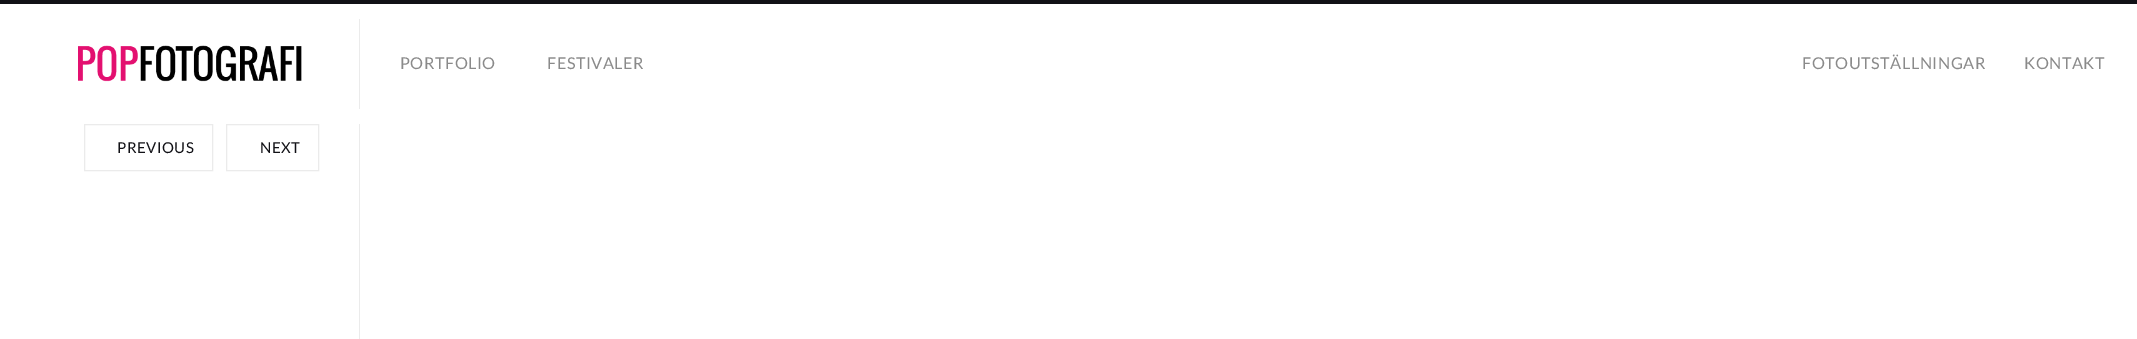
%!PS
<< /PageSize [2137 339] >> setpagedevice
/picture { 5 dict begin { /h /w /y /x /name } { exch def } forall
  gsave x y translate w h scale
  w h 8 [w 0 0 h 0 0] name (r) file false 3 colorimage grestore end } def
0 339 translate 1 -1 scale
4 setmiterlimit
1 setgray
0 0 2137 339 rectfill
0.067 0.067 0.086 setrgbcolor
0 0 2137 4 rectfill
0.922 setgray
359 19 1 90 rectfill
(img1.rgb) 78 45 224 37 picture
/Lato-Regular [16.25 0 0 -16.25 0 0] selectfont
0.541 setgray
400 69 moveto 0.5 0 (PORTFOLIO) ashow
547 69 moveto 0.5 0 (FESTIVALER) ashow
1802 69 moveto 0.5 0 (FOTOUTSTÄLLNINGAR) ashow
2024 69 moveto 0.5 0 (KONTAKT) ashow
0.922 setgray
359 124 1 215 rectfill
84.5 124.5 128 46 rectstroke
/Lato-Regular [15 0 0 -15 0 0] selectfont
0.067 0.067 0.086 setrgbcolor
117 153 moveto 0.5 0 (PREVIOUS) ashow
0.922 setgray
226.5 124.5 92 46 rectstroke
0.067 0.067 0.086 setrgbcolor
260 153 moveto 0.5 0 (NEXT) ashow
showpage
